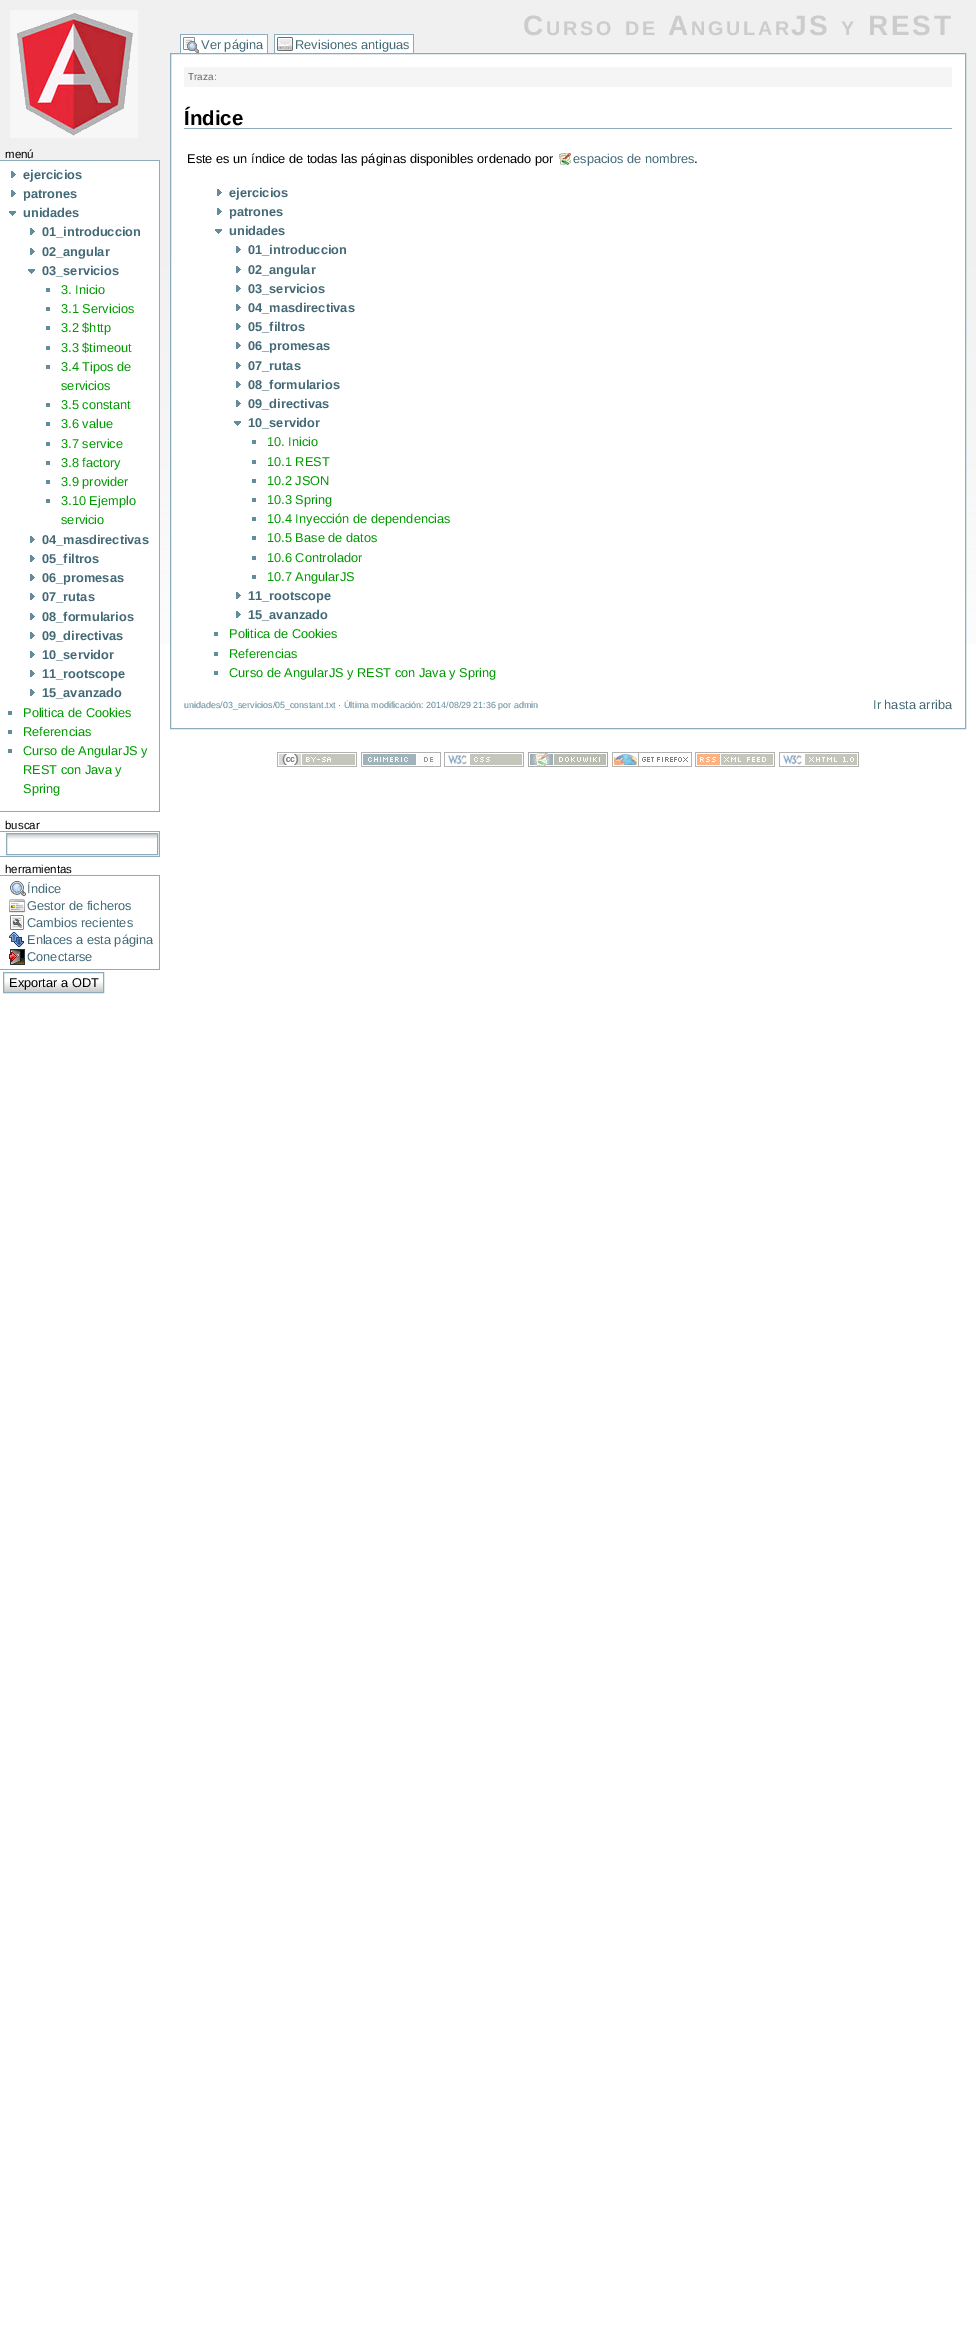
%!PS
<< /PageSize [976 2352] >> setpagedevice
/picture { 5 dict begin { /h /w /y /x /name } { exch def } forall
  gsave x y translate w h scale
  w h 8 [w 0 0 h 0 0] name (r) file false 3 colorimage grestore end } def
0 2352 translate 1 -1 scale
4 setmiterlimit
1 setgray
0 0 976 2352 rectfill
(img1.rgb) 0 0 976 644 picture
(img2.rgb) 10 10 128 128 picture
/LiberationSans-Regular [11.5 0 0 -11.5 0 0] selectfont
0 setgray
5 158 moveto (menú) show
1 setgray
0 161 159 483 rectfill
0.549 0.675 0.733 setrgbcolor
0 160 160 1 rectfill
159 160 1 652 rectfill
0 811 160 1 rectfill
(img3.rgb) 11 171 5 7 picture
/LiberationSans-Bold [12.8 0 0 -12.8 0 0] selectfont
0.263 0.412 0.463 setrgbcolor
23 179 moveto (ejercicios) show
(img3.rgb) 11 190 5 7 picture
23 198 moveto (patrones) show
(img4.rgb) 9 211 7 5 picture
23 217 moveto (unidades) show
(img3.rgb) 30 228 5 7 picture
42 236 moveto (01_introduccion) show
(img3.rgb) 30 248 5 7 picture
42 256 moveto (02_angular) show
(img4.rgb) 28 269 7 5 picture
42 275 moveto (03_servicios) show
0.388 0.549 0.612 setrgbcolor
46 288 4 4 rectfill
/LiberationSans-Regular [12.8 0 0 -12.8 0 0] selectfont
0 0.6 0 setrgbcolor
61 294 moveto (3. Inicio) show
0.388 0.549 0.612 setrgbcolor
46 307 4 4 rectfill
0 0.6 0 setrgbcolor
61 313 moveto (3.1 Servicios) show
0.388 0.549 0.612 setrgbcolor
46 326 4 4 rectfill
0 0.6 0 setrgbcolor
61 332 moveto (3.2 $http) show
0.388 0.549 0.612 setrgbcolor
46 346 4 4 rectfill
0 0.6 0 setrgbcolor
61 352 moveto (3.3 $timeout) show
0.388 0.549 0.612 setrgbcolor
46 365 4 4 rectfill
0 0.6 0 setrgbcolor
61 371 moveto (3.4 Tipos de) show
61 390 moveto (servicios) show
0.388 0.549 0.612 setrgbcolor
46 403 4 4 rectfill
0 0.6 0 setrgbcolor
61 409 moveto (3.5 constant) show
0.388 0.549 0.612 setrgbcolor
46 422 4 4 rectfill
0 0.6 0 setrgbcolor
61 428 moveto (3.6 value) show
0.388 0.549 0.612 setrgbcolor
46 442 4 4 rectfill
0 0.6 0 setrgbcolor
61 448 moveto (3.7 service) show
0.388 0.549 0.612 setrgbcolor
46 461 4 4 rectfill
0 0.6 0 setrgbcolor
61 467 moveto (3.8 factory) show
0.388 0.549 0.612 setrgbcolor
46 480 4 4 rectfill
0 0.6 0 setrgbcolor
61 486 moveto (3.9 provider) show
0.388 0.549 0.612 setrgbcolor
46 499 4 4 rectfill
0 0.6 0 setrgbcolor
61 505 moveto (3.10 Ejemplo) show
61 524 moveto (servicio) show
(img3.rgb) 30 536 5 7 picture
/LiberationSans-Bold [12.8 0 0 -12.8 0 0] selectfont
0.263 0.412 0.463 setrgbcolor
42 544 moveto (04_masdirectivas) show
(img3.rgb) 30 555 5 7 picture
42 563 moveto (05_filtros) show
(img3.rgb) 30 574 5 7 picture
42 582 moveto (06_promesas) show
(img3.rgb) 30 593 5 7 picture
42 601 moveto (07_rutas) show
(img3.rgb) 30 613 5 7 picture
42 621 moveto (08_formularios) show
(img3.rgb) 30 632 5 7 picture
42 640 moveto (09_directivas) show
(img3.rgb) 30 651 5 7 picture
42 659 moveto (10_servidor) show
(img3.rgb) 30 670 5 7 picture
42 678 moveto (11_rootscope) show
(img3.rgb) 30 689 5 7 picture
42 697 moveto (15_avanzado) show
0.388 0.549 0.612 setrgbcolor
8 711 4 4 rectfill
/LiberationSans-Regular [12.8 0 0 -12.8 0 0] selectfont
0 0.6 0 setrgbcolor
23 717 moveto (Politica de Cookies) show
0.388 0.549 0.612 setrgbcolor
8 730 4 4 rectfill
0 0.6 0 setrgbcolor
23 736 moveto (Referencias) show
0.388 0.549 0.612 setrgbcolor
8 749 4 4 rectfill
0 0.6 0 setrgbcolor
23 755 moveto (Curso de AngularJS y) show
23 774 moveto (REST con Java y) show
23 793 moveto (Spring) show
/LiberationSans-Regular [11.5 0 0 -11.5 0 0] selectfont
0 setgray
5 829 moveto (buscar) show
0.549 0.675 0.733 setrgbcolor
0 831 160 1 rectfill
159 831 1 26 rectfill
0 856 160 1 rectfill
(img5.rgb) 7 834 150 5 picture
6.5 833.5 151 21 rectstroke
0 setgray
5 873 moveto (herramientas) show
0.549 0.675 0.733 setrgbcolor
0 875 160 1 rectfill
159 875 1 95 rectfill
0 969 160 1 rectfill
(img6.rgb) 10 881 16 15 picture
/LiberationSans-Regular [12.8 0 0 -12.8 0 0] selectfont
0.263 0.412 0.463 setrgbcolor
27 893 moveto (Índice) show
(img7.rgb) 9 899 16 14 picture
27 910 moveto (Gestor de ficheros) show
(img8.rgb) 10 915 14 15 picture
27 927 moveto (Cambios recientes) show
(img9.rgb) 9 932 15 15 picture
27 944 moveto (Enlaces a esta página) show
(img10.rgb) 9 949 16 16 picture
27 961 moveto (Conectarse) show
(img11.rgb) 4 982 99 10 picture
0.549 0.675 0.733 setrgbcolor
3.5 972.5 100 20 rectstroke
0 setgray
9 987 moveto (Exportar a ODT) show
/LiberationSans-Bold [28 0 0 -28 0 0] selectfont
0.8 setgray
523 35 moveto 2.75 0 (C) ashow
/LiberationSans-Bold [19.75 0 0 -19.75 0 0] selectfont
546 35 moveto 2.75 0 (URSO) ashow
625 35 moveto 2.75 0 (DE) ashow
/LiberationSans-Bold [28 0 0 -28 0 0] selectfont
668 35 moveto 2.75 0 (A) ashow
/LiberationSans-Bold [19.75 0 0 -19.75 0 0] selectfont
691 35 moveto 2.75 0 (NGULAR) ashow
/LiberationSans-Bold [28 0 0 -28 0 0] selectfont
791 35 moveto 2.75 0 (JS) ashow
/LiberationSans-Bold [19.75 0 0 -19.75 0 0] selectfont
841 35 moveto 2.75 0 (Y) ashow
/LiberationSans-Bold [28 0 0 -28 0 0] selectfont
868 35 moveto 2.75 0 (REST) ashow
1 setgray
181 35 86 18 rectfill
(img12.rgb) 183 37 16 16 picture
0.549 0.675 0.733 setrgbcolor
180 34 88 1 rectfill
267 34 1 19 rectfill
180 34 1 19 rectfill
/LiberationSans-Regular [12.8 0 0 -12.8 0 0] selectfont
0.263 0.412 0.463 setrgbcolor
201 49 moveto (Ver página) show
1 setgray
275 35 138 18 rectfill
(img13.rgb) 277 37 16 14 picture
0.549 0.675 0.733 setrgbcolor
274 34 140 1 rectfill
413 34 1 19 rectfill
274 34 1 19 rectfill
0.263 0.412 0.463 setrgbcolor
295 49 moveto (Revisiones antiguas) show
1 setgray
171 54 794 590 rectfill
0.549 0.675 0.733 setrgbcolor
170.5 53.5 795 675 rectstroke
0.961 setgray
184 67 768 20 rectfill
/LiberationSans-Regular [10 0 0 -10 0 0] selectfont
0.4 setgray
188 80 moveto (Traza:) show
0.549 0.675 0.733 setrgbcolor
184 128 768 1 rectfill
/LiberationSans-Bold [20.5 0 0 -20.5 0 0] selectfont
0 setgray
184 125 moveto (Índice) show
/LiberationSans-Regular [12.8 0 0 -12.8 0 0] selectfont
187 163 moveto (Este es un índice de todas las páginas disponibles ordenado por) show
(img14.rgb) 559 153 12 12 picture
0.263 0.412 0.463 setrgbcolor
573 163 moveto (espacios de nombres) show
0 setgray
694 163 moveto (.) show
(img3.rgb) 217 189 5 7 picture
/LiberationSans-Bold [12.8 0 0 -12.8 0 0] selectfont
0.263 0.412 0.463 setrgbcolor
229 197 moveto (ejercicios) show
(img3.rgb) 217 208 5 7 picture
229 216 moveto (patrones) show
(img4.rgb) 215 229 7 5 picture
229 235 moveto (unidades) show
(img3.rgb) 236 246 5 7 picture
248 254 moveto (01_introduccion) show
(img3.rgb) 236 266 5 7 picture
248 274 moveto (02_angular) show
(img3.rgb) 236 285 5 7 picture
248 293 moveto (03_servicios) show
(img3.rgb) 236 304 5 7 picture
248 312 moveto (04_masdirectivas) show
(img3.rgb) 236 323 5 7 picture
248 331 moveto (05_filtros) show
(img3.rgb) 236 342 5 7 picture
248 350 moveto (06_promesas) show
(img3.rgb) 236 362 5 7 picture
248 370 moveto (07_rutas) show
(img3.rgb) 236 381 5 7 picture
248 389 moveto (08_formularios) show
(img3.rgb) 236 400 5 7 picture
248 408 moveto (09_directivas) show
(img4.rgb) 234 421 7 5 picture
248 427 moveto (10_servidor) show
0.388 0.549 0.612 setrgbcolor
252 440 4 4 rectfill
/LiberationSans-Regular [12.8 0 0 -12.8 0 0] selectfont
0 0.6 0 setrgbcolor
267 446 moveto (10. Inicio) show
0.388 0.549 0.612 setrgbcolor
252 460 4 4 rectfill
0 0.6 0 setrgbcolor
267 466 moveto (10.1 REST) show
0.388 0.549 0.612 setrgbcolor
252 479 4 4 rectfill
0 0.6 0 setrgbcolor
267 485 moveto (10.2 JSON) show
0.388 0.549 0.612 setrgbcolor
252 498 4 4 rectfill
0 0.6 0 setrgbcolor
267 504 moveto (10.3 Spring) show
0.388 0.549 0.612 setrgbcolor
252 517 4 4 rectfill
0 0.6 0 setrgbcolor
267 523 moveto (10.4 Inyección de dependencias) show
0.388 0.549 0.612 setrgbcolor
252 536 4 4 rectfill
0 0.6 0 setrgbcolor
267 542 moveto (10.5 Base de datos) show
0.388 0.549 0.612 setrgbcolor
252 556 4 4 rectfill
0 0.6 0 setrgbcolor
267 562 moveto (10.6 Controlador) show
0.388 0.549 0.612 setrgbcolor
252 575 4 4 rectfill
0 0.6 0 setrgbcolor
267 581 moveto (10.7 AngularJS) show
(img3.rgb) 236 592 5 7 picture
/LiberationSans-Bold [12.8 0 0 -12.8 0 0] selectfont
0.263 0.412 0.463 setrgbcolor
248 600 moveto (11_rootscope) show
(img3.rgb) 236 611 5 7 picture
248 619 moveto (15_avanzado) show
0.388 0.549 0.612 setrgbcolor
214 632 4 4 rectfill
/LiberationSans-Regular [12.8 0 0 -12.8 0 0] selectfont
0 0.6 0 setrgbcolor
229 638 moveto (Politica de Cookies) show
0.388 0.549 0.612 setrgbcolor
214 652 4 4 rectfill
0 0.6 0 setrgbcolor
229 658 moveto (Referencias) show
0.388 0.549 0.612 setrgbcolor
214 671 4 4 rectfill
0 0.6 0 setrgbcolor
229 677 moveto (Curso de AngularJS y REST con Java y Spring) show
/LiberationSans-Regular [8.95 0 0 -8.95 0 0] selectfont
0.388 0.549 0.612 setrgbcolor
184 708 moveto (unidades/03_servicios/05_constant.txt · Última modificación: 2014/08/29 21:36 por admin) show
/LiberationSans-Regular [12.8 0 0 -12.8 0 0] selectfont
0.263 0.412 0.463 setrgbcolor
873 709 moveto (Ir hasta arriba) show
(img15.rgb) 277 752 80 15 picture
(img16.rgb) 361 752 80 15 picture
(img17.rgb) 444 752 80 15 picture
(img18.rgb) 528 752 80 15 picture
(img19.rgb) 612 752 80 15 picture
(img20.rgb) 695 752 80 15 picture
(img21.rgb) 779 752 80 15 picture
showpage
